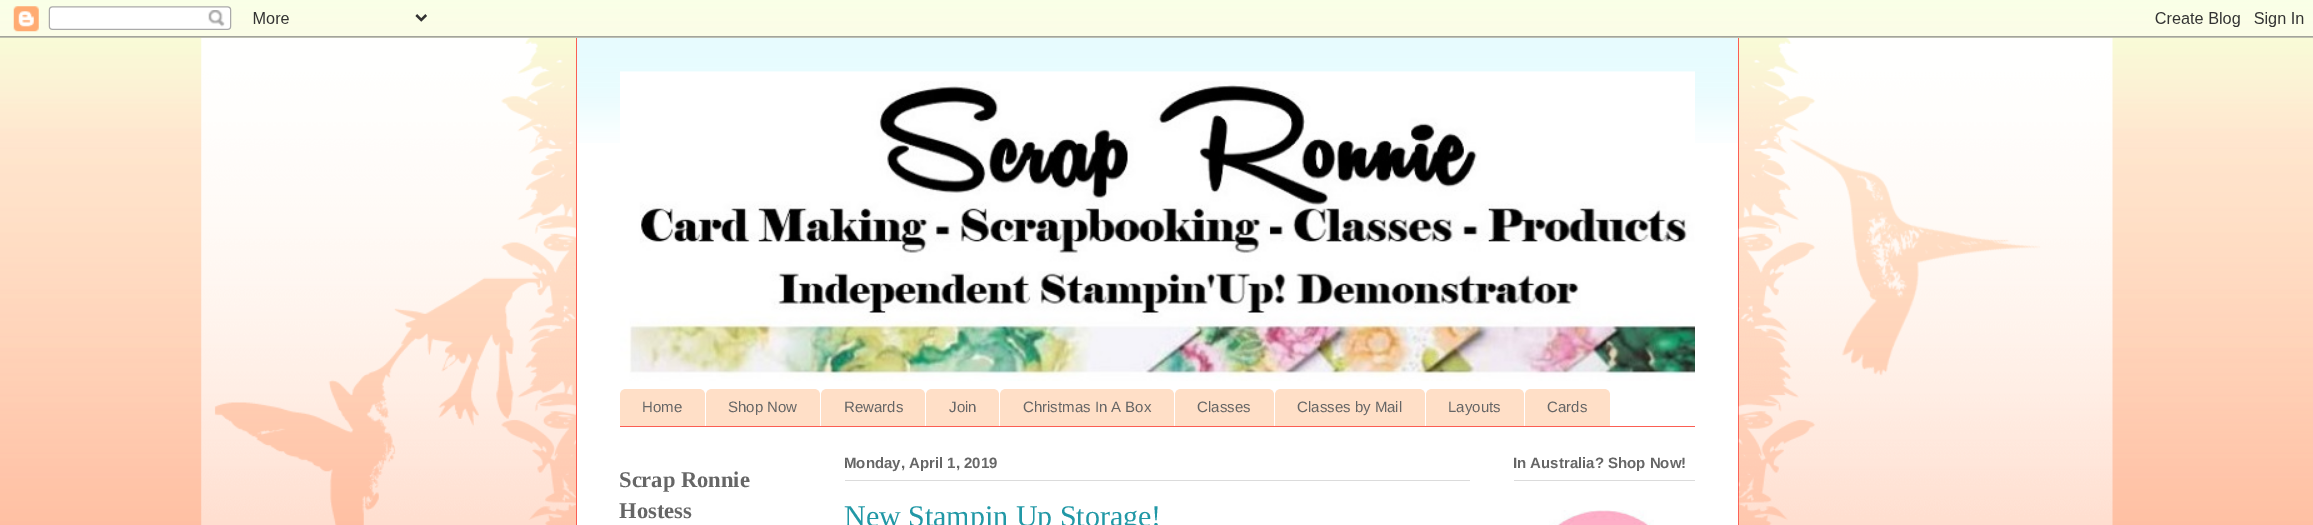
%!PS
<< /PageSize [2313 525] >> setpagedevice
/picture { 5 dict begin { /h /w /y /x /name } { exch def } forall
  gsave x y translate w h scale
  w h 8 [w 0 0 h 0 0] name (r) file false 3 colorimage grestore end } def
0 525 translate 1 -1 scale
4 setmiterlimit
1 setgray
0 0 2313 525 rectfill
(img1.rgb) 0 0 2313 525 picture
(img3.rgb) 201 37 1521 488 picture
577 38 1161 487 rectfill
(img4.rgb) 576 37 1163 106 picture
0.984 0.369 0.325 setrgbcolor
1738 38 1 487 rectfill
(img5.rgb) 1738 37 375 488 picture
(img2.rgb) 0 0 2313 38 picture
576 38 1 487 rectfill
(img6.rgb) 620 71 1075 310 picture
620 426 1075 1 rectfill
1 0.875 0.78 setrgbcolor
newpath 626 389 moveto 699 389 lineto 702.5 389 705 391.5 705 395 curveto 705 426 lineto 620 426 lineto 620 395 lineto 620 391.5 622.5 389 626 389 curveto closepath fill
/LiberationSans-Regular [15 0 0 -15 0 0] selectfont
0.4 setgray
642 412 moveto (Home) show
1 0.875 0.78 setrgbcolor
newpath 712 389 moveto 814 389 lineto 817.5 389 820 391.5 820 395 curveto 820 426 lineto 706 426 lineto 706 395 lineto 706 391.5 708.5 389 712 389 curveto closepath fill
0.4 setgray
728 412 moveto (Shop Now) show
1 0.875 0.78 setrgbcolor
newpath 827 389 moveto 919 389 lineto 922.5 389 925 391.5 925 395 curveto 925 426 lineto 821 426 lineto 821 395 lineto 821 391.5 823.5 389 827 389 curveto closepath fill
0.4 setgray
844 412 moveto (Rewards) show
1 0.875 0.78 setrgbcolor
newpath 932 389 moveto 993 389 lineto 996.5 389 999 391.5 999 395 curveto 999 426 lineto 926 426 lineto 926 395 lineto 926 391.5 928.5 389 932 389 curveto closepath fill
0.4 setgray
949 412 moveto (Join) show
1 0.875 0.78 setrgbcolor
newpath 1006 389 moveto 1168 389 lineto 1171.5 389 1174 391.5 1174 395 curveto 1174 426 lineto 1000 426 lineto 1000 395 lineto 1000 391.5 1002.5 389 1006 389 curveto closepath fill
0.4 setgray
1023 412 moveto (Christmas In A Box) show
1 0.875 0.78 setrgbcolor
newpath 1181 389 moveto 1268 389 lineto 1271.5 389 1274 391.5 1274 395 curveto 1274 426 lineto 1175 426 lineto 1175 395 lineto 1175 391.5 1177.5 389 1181 389 curveto closepath fill
0.4 setgray
1197 412 moveto (Classes) show
1 0.875 0.78 setrgbcolor
newpath 1281 389 moveto 1419 389 lineto 1422.5 389 1425 391.5 1425 395 curveto 1425 426 lineto 1275 426 lineto 1275 395 lineto 1275 391.5 1277.5 389 1281 389 curveto closepath fill
0.4 setgray
1297 412 moveto (Classes by Mail) show
1 0.875 0.78 setrgbcolor
newpath 1432 389 moveto 1518 389 lineto 1521.5 389 1524 391.5 1524 395 curveto 1524 426 lineto 1426 426 lineto 1426 395 lineto 1426 391.5 1428.5 389 1432 389 curveto closepath fill
0.4 setgray
1448 412 moveto (Layouts) show
1 0.875 0.78 setrgbcolor
newpath 1531 389 moveto 1604 389 lineto 1607.5 389 1610 391.5 1610 395 curveto 1610 426 lineto 1525 426 lineto 1525 395 lineto 1525 391.5 1527.5 389 1531 389 curveto closepath fill
0.4 setgray
1547 412 moveto (Cards) show
0.859 setgray
845 480 625 1 rectfill
/LiberationSans-Bold [15 0 0 -15 0 0] selectfont
0.4 setgray
844 468 moveto (Monday, April 1, 2019) show
/LiberationSerif-Regular [30 0 0 -30 0 0] selectfont
0.129 0.596 0.651 setrgbcolor
844 526 moveto (New Stampin Up Storage!) show
0.859 setgray
1514 480 181 1 rectfill
/LiberationSans-Bold [15 0 0 -15 0 0] selectfont
0.4 setgray
1513 468 moveto (In Australia? Shop Now!) show
(img7.rgb) 1549 510 105 15 picture
/LiberationSerif-Bold [22.5 0 0 -22.5 0 0] selectfont
619 487 moveto (Scrap Ronnie) show
619 518 moveto (Hostess) show
showpage
